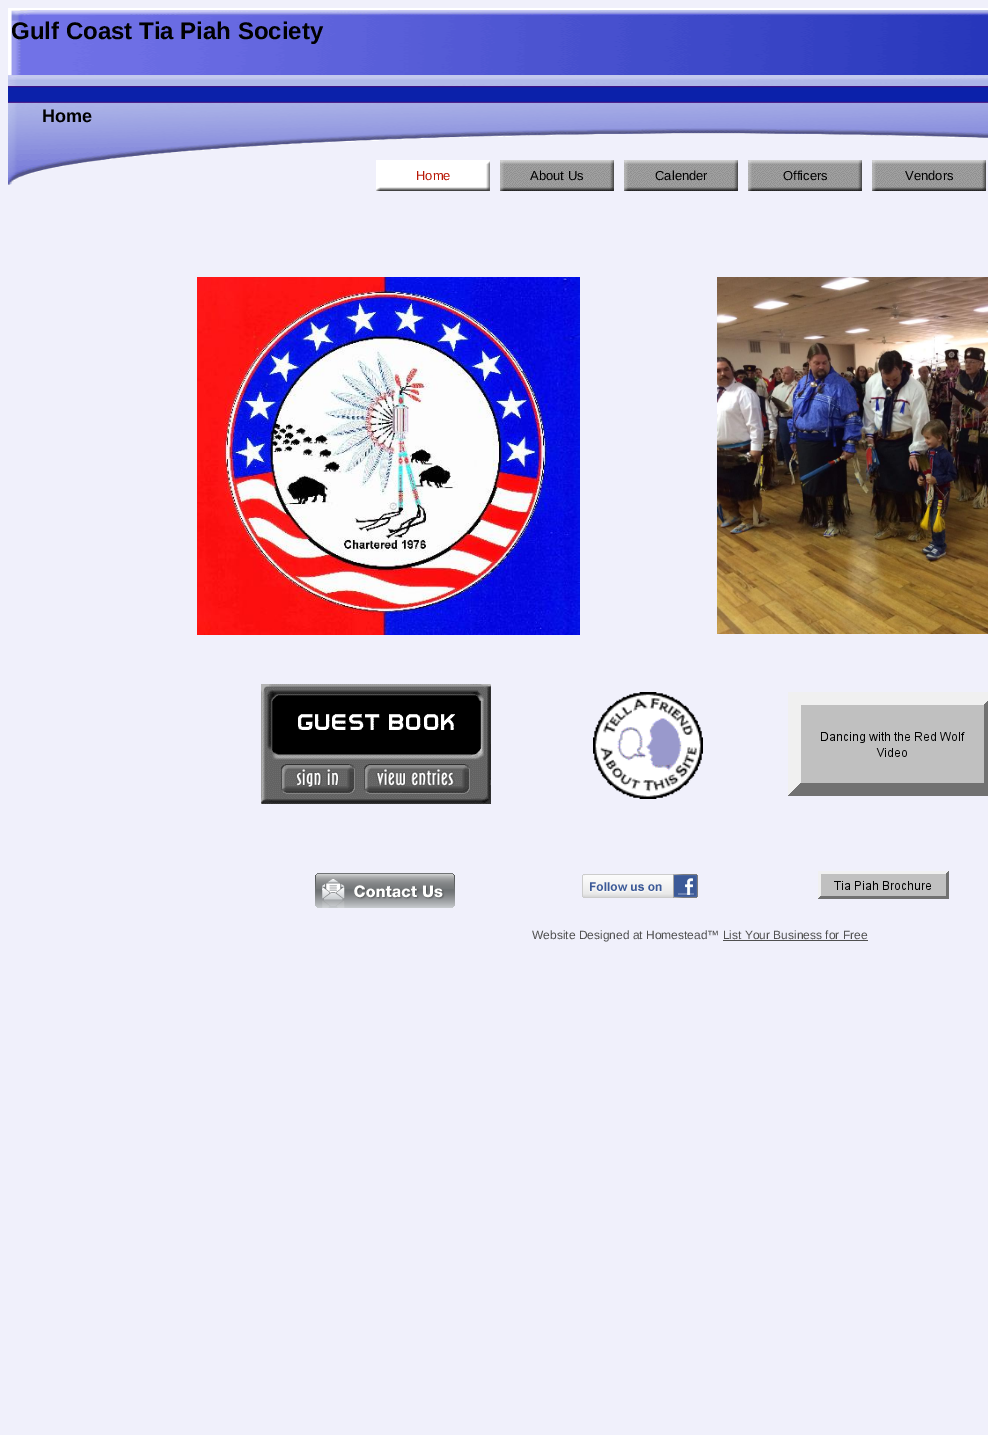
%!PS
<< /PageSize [988 1435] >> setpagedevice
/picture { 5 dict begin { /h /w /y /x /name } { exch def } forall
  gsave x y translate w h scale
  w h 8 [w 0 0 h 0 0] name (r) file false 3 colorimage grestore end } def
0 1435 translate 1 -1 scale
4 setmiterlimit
0.941 0.941 0.984 setrgbcolor
0 0 988 1435 rectfill
(img1.rgb) 8 8 980 177 picture
/LiberationSans-Bold [24 0 0 -24 0 0] selectfont
0 setgray
11 39 moveto (Gulf Coast Tia Piah Society) show
/LiberationSans-Bold [18 0 0 -18 0 0] selectfont
42 122 moveto (Home) show
(img2.rgb) 376 160 114 31 picture
/LiberationSans-Regular [13 0 0 -13 0 0] selectfont
0.725 0.094 0.024 setrgbcolor
416 180 moveto (Home) show
(img3.rgb) 500 160 114 31 picture
0 setgray
530 180 moveto (About Us) show
(img3.rgb) 624 160 114 31 picture
655 180 moveto (Calender) show
(img3.rgb) 748 160 114 31 picture
783 180 moveto (Officers) show
(img3.rgb) 872 160 114 31 picture
905 180 moveto (Vendors) show
(img4.rgb) 197 277 383 358 picture
(img5.rgb) 717 277 271 357 picture
(img6.rgb) 261 684 230 120 picture
(img7.rgb) 593 692 110 107 picture
(img8.rgb) 788 692 200 104 picture
(img9.rgb) 315 873 140 35 picture
(img10.rgb) 582 874 116 24 picture
(img11.rgb) 818 871 131 28 picture
/LiberationSans-Regular [12 0 0 -12 0 0] selectfont
0.314 setgray
532 939 moveto (Website Designed at Homestead™ List Your Business for Free) show
723 940 145 1 rectfill
showpage
